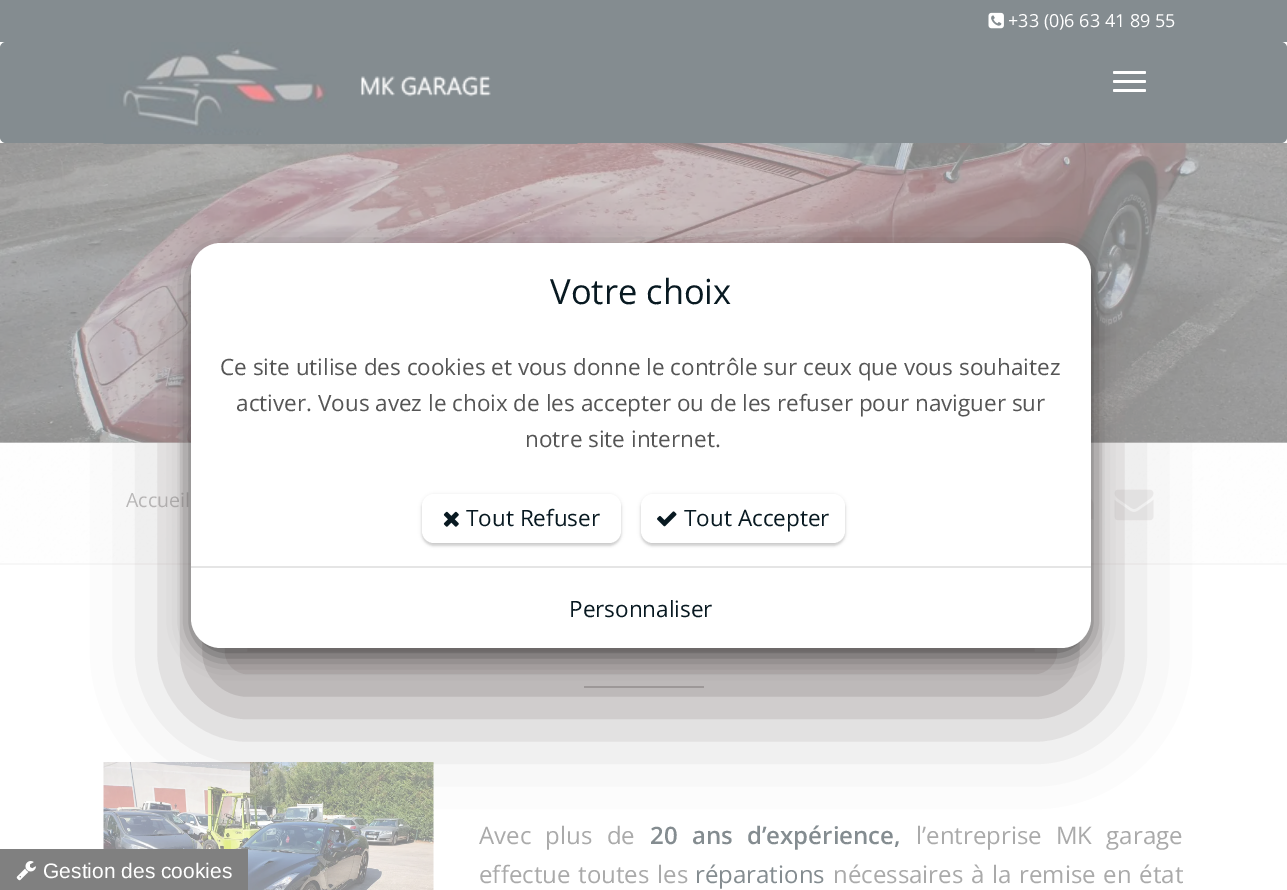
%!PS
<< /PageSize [1287 890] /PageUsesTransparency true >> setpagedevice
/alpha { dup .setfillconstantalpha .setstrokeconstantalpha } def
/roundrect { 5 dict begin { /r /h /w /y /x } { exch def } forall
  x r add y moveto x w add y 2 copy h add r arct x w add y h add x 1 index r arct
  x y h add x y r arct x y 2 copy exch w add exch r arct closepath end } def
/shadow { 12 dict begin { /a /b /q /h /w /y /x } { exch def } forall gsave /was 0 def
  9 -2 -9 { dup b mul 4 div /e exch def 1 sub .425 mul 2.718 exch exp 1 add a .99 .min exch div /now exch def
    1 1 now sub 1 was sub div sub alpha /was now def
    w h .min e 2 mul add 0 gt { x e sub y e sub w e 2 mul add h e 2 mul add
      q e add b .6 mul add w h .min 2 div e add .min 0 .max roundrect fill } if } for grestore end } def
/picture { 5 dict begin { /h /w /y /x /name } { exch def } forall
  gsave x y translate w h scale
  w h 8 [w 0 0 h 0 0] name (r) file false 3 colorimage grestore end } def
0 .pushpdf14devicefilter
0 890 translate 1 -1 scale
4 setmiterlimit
1 setgray
0 0 1287 890 rectfill
0.851 setgray
0 442 1287 1 rectfill
0.518 0.549 0.565 setrgbcolor
0 0 1287 42 rectfill
(img1.rgb) 988 12 16 17 picture
/OpenSans-Regular [18 0 0 -18 0 0] selectfont
1 setgray
1008 27 moveto (+33 \(0\)6 63 41 89 55) show
0.518 0.549 0.565 setrgbcolor
0 42 1287 101 6 roundrect fill
(img3.rgb) 0 143 1287 300 picture
(img2.rgb) 103 42 475 102 picture
1 setgray
1113 71 33 3 1.5 roundrect fill
1113 80 33 3 1.5 roundrect fill
1113 89 33 3 1.5 roundrect fill
(img4.rgb) 0 443 1287 120 picture
0.969 setgray
0 563 1287 2 rectfill
/OpenSans-Regular [19.5 0 0 -19.5 0 0] selectfont
0.733 setgray
126 507 moveto (Accueil) show
(img5.rgb) 1091 499 3 21 picture
(img6.rgb) 1114 489 40 32 picture
0.667 setgray
584 686 120 2 rectfill
(img7.rgb) 103 762 331 128 picture
/OpenSans-Regular [24 0 0 -24 0 0] selectfont
479 844 moveto 8 0 32 (Avec plus de) widthshow
/OpenSans-SemiBold [24 0 0 -24 0 0] selectfont
0.518 0.549 0.565 setrgbcolor
650 844 moveto 8 0 32 (20 ans d’expérience,) widthshow
/OpenSans-Regular [24 0 0 -24 0 0] selectfont
0.667 setgray
916 844 moveto 8 0 32 (l’entreprise MK garage) widthshow
479 883 moveto 1.5 0 32 (effectue toutes les) widthshow
0.518 0.549 0.565 setrgbcolor
695 883 moveto (réparations) show
0.667 setgray
833 883 moveto 1.5 0 32 (nécessaires à la remise en état) widthshow
0.584 0.553 0.553 setrgbcolor
191 303 900 405 30 45 0.88 shadow
0 setgray
191 251 900 405 30 11 0.5 shadow
1 setgray
newpath 221 243 moveto 1061 243 lineto 1077.5 243 1091 256.5 1091 273 curveto 1091 566 lineto 191 566 lineto 191 273 lineto 191 256.5 204.5 243 221 243 curveto closepath fill
/OpenSans-Regular [34.5 0 0 -34.5 0 0] selectfont
0.031 0.098 0.129 setrgbcolor
550 304 moveto (Votre choix) show
/OpenSans-Regular [22.5 0 0 -22.5 0 0] selectfont
0.333 setgray
220 375 moveto (Ce site utilise des cookies et vous donne le contrôle sur ceux que vous souhaitez) show
236 411 moveto (activer. Vous avez le choix de les accepter ou de les refuser pour naviguer sur) show
525 447 moveto (notre site internet.) show
0 setgray
422 495 199 50 12 2 0.13 shadow
422 497 199 49 12 1 0.1 shadow
1 setgray
422 494 199 49 12 roundrect fill
(img8.rgb) 443 511 16 16 picture
0.031 0.098 0.129 setrgbcolor
466 526 moveto (Tout Refuser) show
0 setgray
641 495 204 50 12 2 0.13 shadow
641 497 204 49 12 1 0.1 shadow
1 setgray
641 494 204 49 12 roundrect fill
(img9.rgb) 657 511 20 16 picture
0.031 0.098 0.129 setrgbcolor
684 526 moveto (Tout Accepter) show
1 setgray
newpath 191 566 moveto 1091 566 lineto 1091 618 lineto 1091 634.5 1077.5 648 1061 648 curveto 221 648 lineto 204.5 648 191 634.5 191 618 curveto closepath fill
0.898 setgray
191 566 900 2 rectfill
0.031 0.098 0.129 setrgbcolor
569 617 moveto (Personnaliser) show
0.502 setgray
0 849 248 41 rectfill
(img10.rgb) 16 861 20 20 picture
/LiberationSans-Regular [21 0 0 -21 0 0] selectfont
1 setgray
43 878 moveto (Gestion des cookies) show
.poppdf14devicefilter showpage
